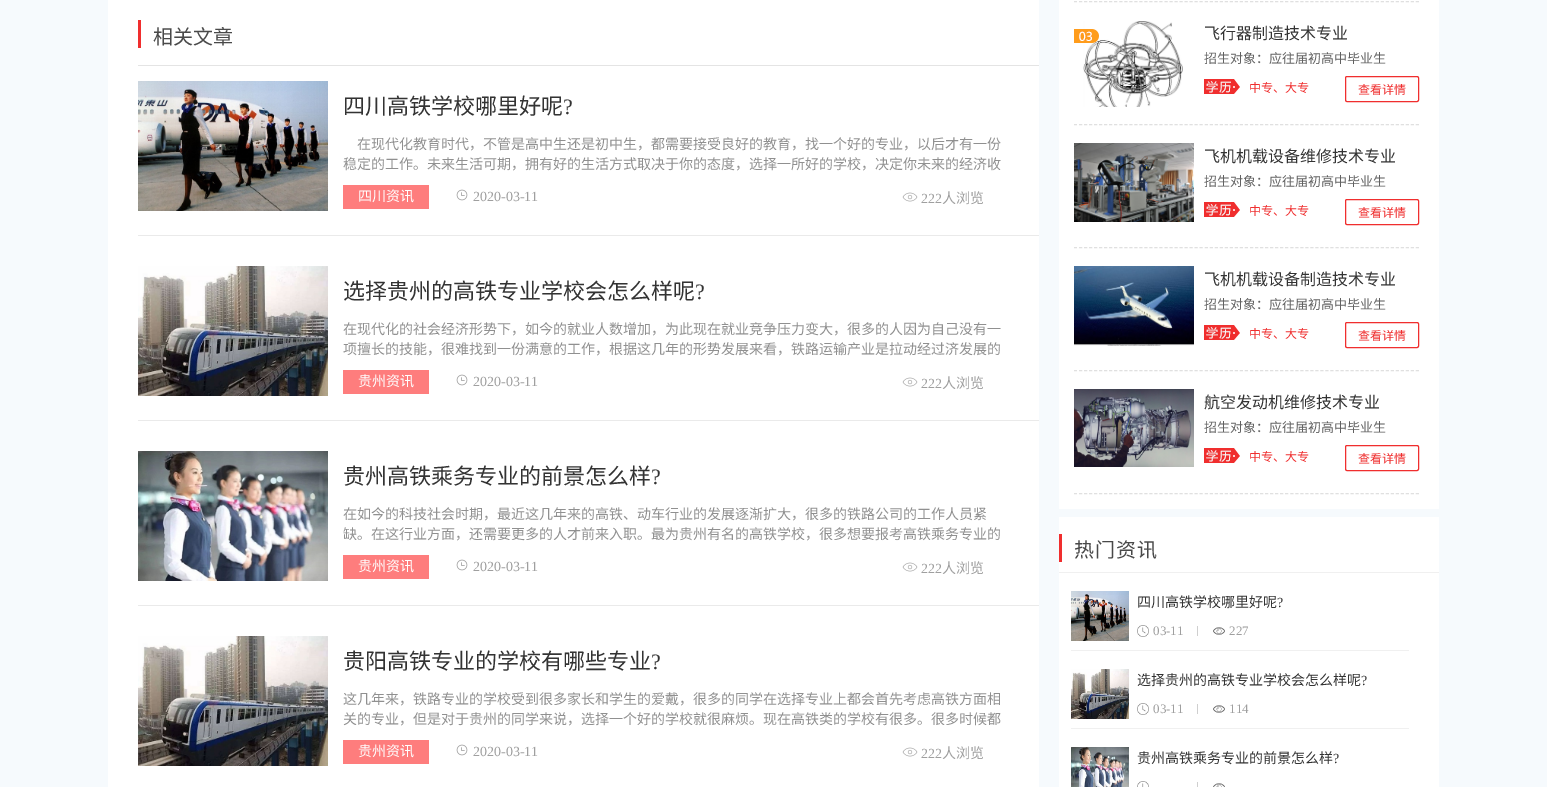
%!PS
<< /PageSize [1547 787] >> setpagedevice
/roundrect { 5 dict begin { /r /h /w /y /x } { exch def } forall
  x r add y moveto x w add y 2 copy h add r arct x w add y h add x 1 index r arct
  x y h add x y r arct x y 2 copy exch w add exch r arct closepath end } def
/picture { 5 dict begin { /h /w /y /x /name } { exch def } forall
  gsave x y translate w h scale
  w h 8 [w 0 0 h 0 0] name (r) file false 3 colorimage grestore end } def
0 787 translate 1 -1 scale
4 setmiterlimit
0.965 0.98 0.992 setrgbcolor
0 0 1547 787 rectfill
1 setgray
108 0 931 787 rectfill
0.894 setgray
138 65 901 1 rectfill
0.941 0.18 0.18 setrgbcolor
138 20 3 28 rectfill
/NotoSansCJKSC-Regular [20 0 0 -20 0 0] selectfont
0.286 setgray
153 44 moveto (相关文章) show
0.918 setgray
138 235 901 1 rectfill
(img1.rgb) 138 81 190 130 picture
/NotoSansCJKSC-Regular [22 0 0 -22 0 0] selectfont
0.2 setgray
343 114 moveto (四川高铁学校哪里好呢) show
/LiberationSerif-Regular [22 0 0 -22 0 0] selectfont
563 114 moveto (?) show
/NotoSansCJKSC-Regular [14 0 0 -14 0 0] selectfont
0.565 setgray
357 149 moveto (在现代化教育时代，不管是高中生还是初中生，都需要接受良好的教育，找一个好的专业，以后才有一份) show
343 169 moveto (稳定的工作。未来生活可期，拥有好的生活方式取决于你的态度，选择一所好的学校，决定你未来的经济收) show
0.996 0.49 0.49 setrgbcolor
343 185 86 24 rectfill
1 setgray
358 201 moveto (四川资讯) show
(img2.rgb) 456 189 12 12 picture
/LiberationSerif-Regular [14 0 0 -14 0 0] selectfont
0.624 setgray
473 201 moveto (2020-03-11) show
(img3.rgb) 902 192 16 10 picture
921 203 moveto (222) show
/NotoSansCJKSC-Regular [14 0 0 -14 0 0] selectfont
942 203 moveto (人浏览) show
0.918 setgray
138 420 901 1 rectfill
(img4.rgb) 138 266 190 130 picture
/NotoSansCJKSC-Regular [22 0 0 -22 0 0] selectfont
0.2 setgray
343 299 moveto (选择贵州的高铁专业学校会怎么样呢) show
/LiberationSerif-Regular [22 0 0 -22 0 0] selectfont
695 299 moveto (?) show
/NotoSansCJKSC-Regular [14 0 0 -14 0 0] selectfont
0.565 setgray
343 334 moveto (在现代化的社会经济形势下，如今的就业人数增加，为此现在就业竞争压力变大，很多的人因为自己没有一) show
343 354 moveto (项擅长的技能，很难找到一份满意的工作，根据这几年的形势发展来看，铁路运输产业是拉动经过济发展的) show
0.996 0.49 0.49 setrgbcolor
343 370 86 24 rectfill
1 setgray
358 386 moveto (贵州资讯) show
(img2.rgb) 456 374 12 12 picture
/LiberationSerif-Regular [14 0 0 -14 0 0] selectfont
0.624 setgray
473 386 moveto (2020-03-11) show
(img3.rgb) 902 377 16 10 picture
921 388 moveto (222) show
/NotoSansCJKSC-Regular [14 0 0 -14 0 0] selectfont
942 388 moveto (人浏览) show
0.918 setgray
138 605 901 1 rectfill
(img5.rgb) 138 451 190 130 picture
/NotoSansCJKSC-Regular [22 0 0 -22 0 0] selectfont
0.2 setgray
343 484 moveto (贵州高铁乘务专业的前景怎么样) show
/LiberationSerif-Regular [22 0 0 -22 0 0] selectfont
651 484 moveto (?) show
/NotoSansCJKSC-Regular [14 0 0 -14 0 0] selectfont
0.565 setgray
343 519 moveto (在如今的科技社会时期，最近这几年来的高铁、动车行业的发展逐渐扩大，很多的铁路公司的工作人员紧) show
343 539 moveto (缺。在这行业方面，还需要更多的人才前来入职。最为贵州有名的高铁学校，很多想要报考高铁乘务专业的) show
0.996 0.49 0.49 setrgbcolor
343 555 86 24 rectfill
1 setgray
358 571 moveto (贵州资讯) show
(img2.rgb) 456 559 12 12 picture
/LiberationSerif-Regular [14 0 0 -14 0 0] selectfont
0.624 setgray
473 571 moveto (2020-03-11) show
(img3.rgb) 902 562 16 10 picture
921 573 moveto (222) show
/NotoSansCJKSC-Regular [14 0 0 -14 0 0] selectfont
942 573 moveto (人浏览) show
(img6.rgb) 138 636 190 130 picture
/NotoSansCJKSC-Regular [22 0 0 -22 0 0] selectfont
0.2 setgray
343 669 moveto (贵阳高铁专业的学校有哪些专业) show
/LiberationSerif-Regular [22 0 0 -22 0 0] selectfont
651 669 moveto (?) show
/NotoSansCJKSC-Regular [14 0 0 -14 0 0] selectfont
0.565 setgray
343 704 moveto (这几年来，铁路专业的学校受到很多家长和学生的爱戴，很多的同学在选择专业上都会首先考虑高铁方面相) show
343 724 moveto (关的专业，但是对于贵州的同学来说，选择一个好的学校就很麻烦。现在高铁类的学校有很多。很多时候都) show
0.996 0.49 0.49 setrgbcolor
343 740 86 24 rectfill
1 setgray
358 756 moveto (贵州资讯) show
(img2.rgb) 456 744 12 12 picture
/LiberationSerif-Regular [14 0 0 -14 0 0] selectfont
0.624 setgray
473 756 moveto (2020-03-11) show
(img3.rgb) 902 747 16 10 picture
921 758 moveto (222) show
/NotoSansCJKSC-Regular [14 0 0 -14 0 0] selectfont
942 758 moveto (人浏览) show
1 setgray
1059 0 380 509 rectfill
0.878 setgray
[3 2.03] 0 setdash
newpath 1074 1.5 moveto 1419 1.5 lineto stroke
newpath 1074 124.5 moveto 1419 124.5 lineto stroke
(img7.rgb) 1083 21 100 86 picture
/NotoSansCJKSC-Regular [16 0 0 -16 0 0] selectfont
0.2 setgray
1204 39 moveto (飞行器制造技术专业) show
(img8.rgb) 1074 29 25 14 picture
/NotoSansCJKSC-Regular [13 0 0 -13 0 0] selectfont
0.38 setgray
1204 63 moveto (招生对象：应往届初高中毕业生) show
(img9.rgb) 1204 79 36 15 picture
/NotoSansCJKSC-Regular [12 0 0 -12 0 0] selectfont
0.941 0.18 0.18 setrgbcolor
1249 92 moveto (中专、大专) show
[] 0 setdash
1345.5 76.5 73 25 1.5 roundrect stroke
1358 94 moveto (查看详情) show
0.878 setgray
[3 2.03] 0 setdash
newpath 1074 247.5 moveto 1419 247.5 lineto stroke
(img10.rgb) 1074 143 120 79 picture
/NotoSansCJKSC-Regular [16 0 0 -16 0 0] selectfont
0.2 setgray
1204 162 moveto (飞机机载设备维修技术专业) show
/NotoSansCJKSC-Regular [13 0 0 -13 0 0] selectfont
0.38 setgray
1204 186 moveto (招生对象：应往届初高中毕业生) show
(img9.rgb) 1204 202 36 15 picture
/NotoSansCJKSC-Regular [12 0 0 -12 0 0] selectfont
0.941 0.18 0.18 setrgbcolor
1249 215 moveto (中专、大专) show
[] 0 setdash
1345.5 199.5 73 25 1.5 roundrect stroke
1358 217 moveto (查看详情) show
0.878 setgray
[3 2.03] 0 setdash
newpath 1074 370.5 moveto 1419 370.5 lineto stroke
(img11.rgb) 1074 266 120 80 picture
/NotoSansCJKSC-Regular [16 0 0 -16 0 0] selectfont
0.2 setgray
1204 285 moveto (飞机机载设备制造技术专业) show
/NotoSansCJKSC-Regular [13 0 0 -13 0 0] selectfont
0.38 setgray
1204 309 moveto (招生对象：应往届初高中毕业生) show
(img9.rgb) 1204 325 36 15 picture
/NotoSansCJKSC-Regular [12 0 0 -12 0 0] selectfont
0.941 0.18 0.18 setrgbcolor
1249 338 moveto (中专、大专) show
[] 0 setdash
1345.5 322.5 73 25 1.5 roundrect stroke
1358 340 moveto (查看详情) show
0.878 setgray
[3 2.03] 0 setdash
newpath 1074 493.5 moveto 1419 493.5 lineto stroke
(img12.rgb) 1074 389 120 78 picture
/NotoSansCJKSC-Regular [16 0 0 -16 0 0] selectfont
0.2 setgray
1204 408 moveto (航空发动机维修技术专业) show
/NotoSansCJKSC-Regular [13 0 0 -13 0 0] selectfont
0.38 setgray
1204 432 moveto (招生对象：应往届初高中毕业生) show
(img9.rgb) 1204 448 36 15 picture
/NotoSansCJKSC-Regular [12 0 0 -12 0 0] selectfont
0.941 0.18 0.18 setrgbcolor
1249 461 moveto (中专、大专) show
[] 0 setdash
1345.5 445.5 73 25 1.5 roundrect stroke
1358 463 moveto (查看详情) show
1 setgray
1059 517 380 270 rectfill
0.941 setgray
1059 572 380 1 rectfill
0.941 0.18 0.18 setrgbcolor
1059 534 3 28 rectfill
/NotoSansCJKSC-Regular [20 0 0 -20 0 0] selectfont
0.286 setgray
1074 557 moveto 1 0 (热门资讯) ashow
0.941 setgray
1071 650 338 1 rectfill
(img13.rgb) 1071 591 58 50 picture
/NotoSansCJKSC-Regular [14 0 0 -14 0 0] selectfont
0.2 setgray
1137 607 moveto (四川高铁学校哪里好呢) show
/LiberationSerif-Regular [14 0 0 -14 0 0] selectfont
1277 607 moveto (?) show
(img14.rgb) 1137 625 12 12 picture
/LiberationSerif-Regular [13 0 0 -13 0 0] selectfont
0.624 setgray
1153 635 moveto (03-11) show
0.812 setgray
1197 626 1 10 rectfill
(img15.rgb) 1213 627 12 8 picture
0.624 setgray
1229 635 moveto (227) show
0.941 setgray
1071 728 338 1 rectfill
(img16.rgb) 1071 669 58 50 picture
/NotoSansCJKSC-Regular [14 0 0 -14 0 0] selectfont
0.2 setgray
1137 685 moveto (选择贵州的高铁专业学校会怎么样呢) show
/LiberationSerif-Regular [14 0 0 -14 0 0] selectfont
1361 685 moveto (?) show
(img14.rgb) 1137 703 12 12 picture
/LiberationSerif-Regular [13 0 0 -13 0 0] selectfont
0.624 setgray
1153 713 moveto (03-11) show
0.812 setgray
1197 704 1 10 rectfill
(img15.rgb) 1213 705 12 8 picture
0.624 setgray
1229 713 moveto (114) show
(img17.rgb) 1071 747 58 40 picture
/NotoSansCJKSC-Regular [14 0 0 -14 0 0] selectfont
0.2 setgray
1137 763 moveto (贵州高铁乘务专业的前景怎么样) show
/LiberationSerif-Regular [14 0 0 -14 0 0] selectfont
1333 763 moveto (?) show
(img18.rgb) 1137 781 12 6 picture
0.812 setgray
1197 782 1 5 rectfill
(img19.rgb) 1213 783 12 4 picture
showpage
